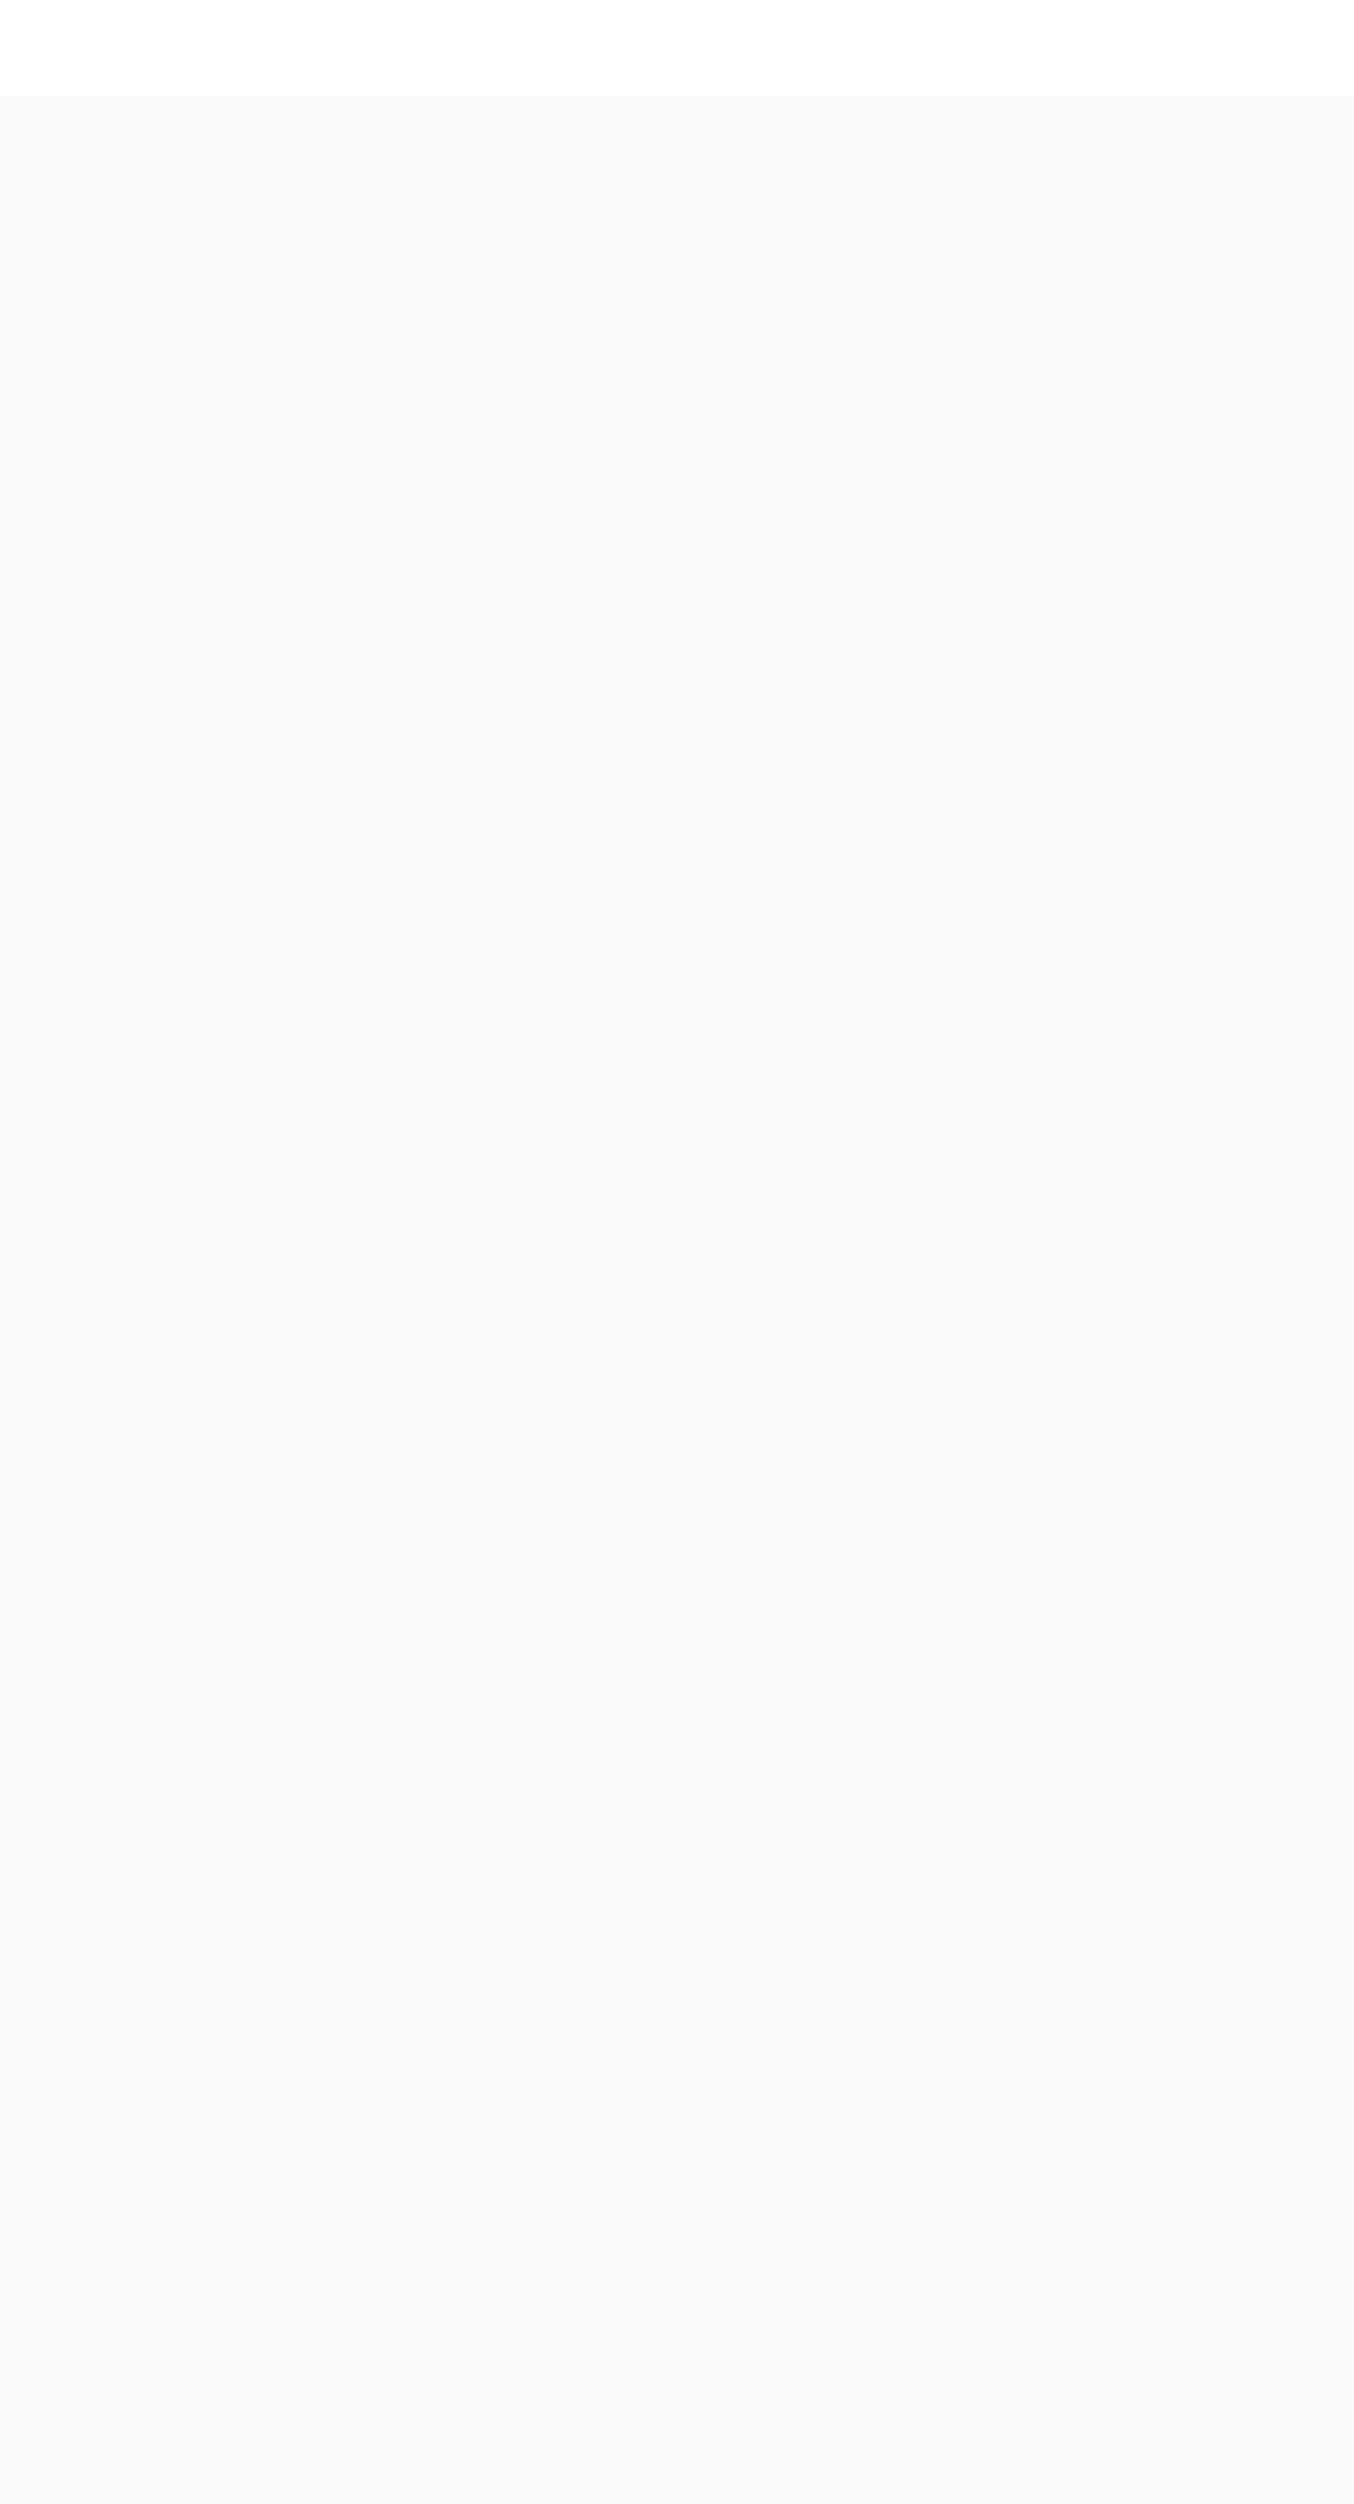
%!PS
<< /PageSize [1354 2504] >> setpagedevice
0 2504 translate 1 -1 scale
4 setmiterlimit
0.98 setgray
0 0 1354 2504 rectfill
1 setgray
0 0 1354 96 rectfill
showpage
